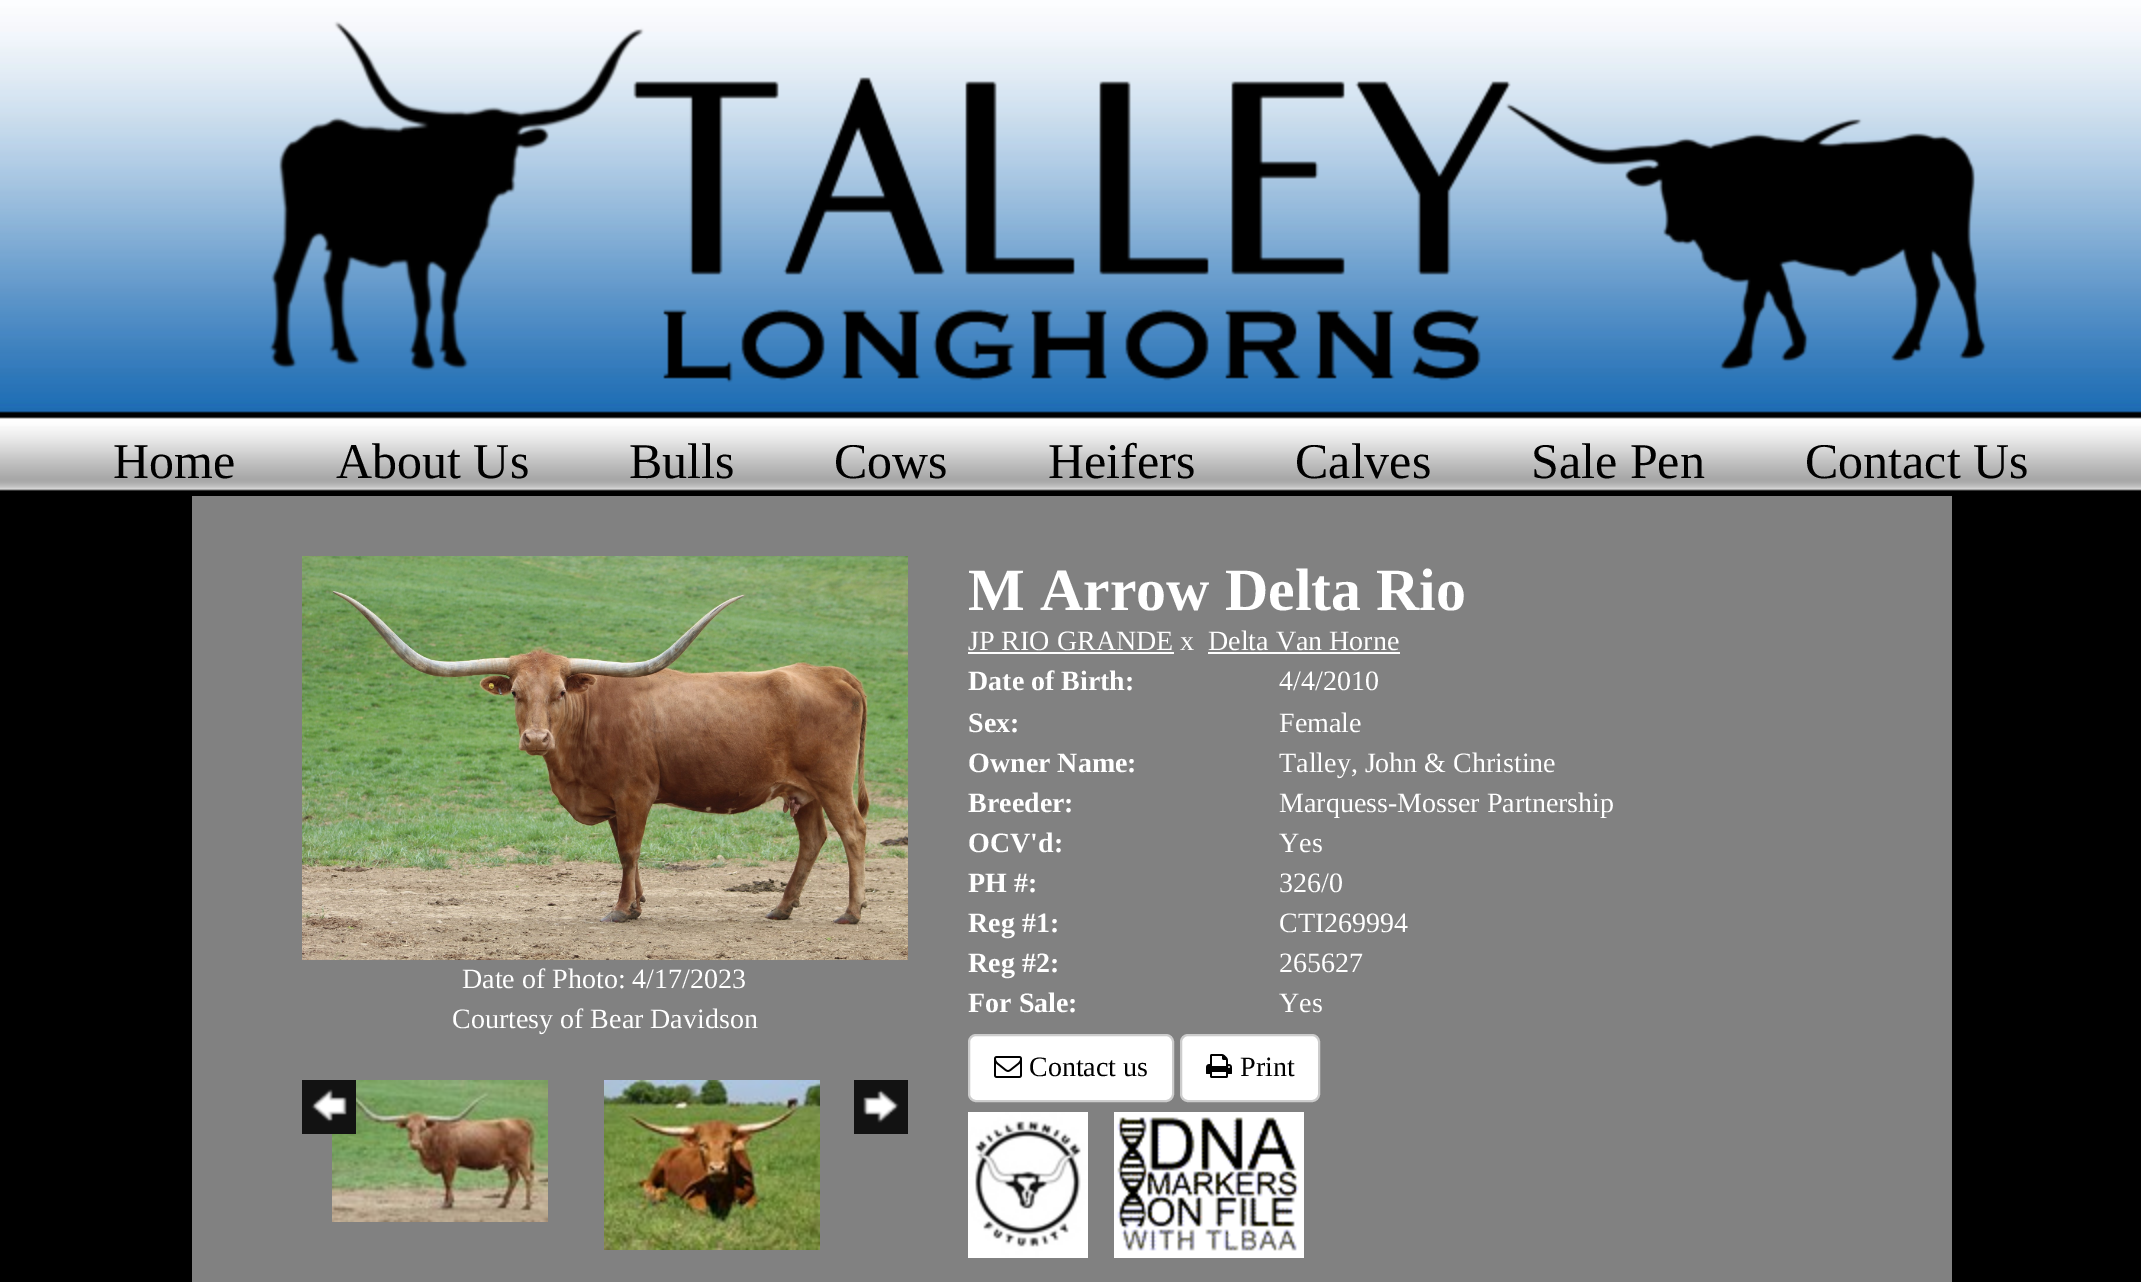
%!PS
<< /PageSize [2141 1282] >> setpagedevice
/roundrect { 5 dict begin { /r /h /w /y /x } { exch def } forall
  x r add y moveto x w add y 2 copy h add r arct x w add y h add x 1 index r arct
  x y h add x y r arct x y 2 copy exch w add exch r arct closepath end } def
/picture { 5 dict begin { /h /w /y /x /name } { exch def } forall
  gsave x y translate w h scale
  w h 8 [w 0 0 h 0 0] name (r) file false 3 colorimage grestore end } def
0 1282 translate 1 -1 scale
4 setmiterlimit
0 setgray
0 0 2141 1282 rectfill
(img1.rgb) 0 0 2141 491 picture
(img2.rgb) 269 21 1718 362 picture
/LiberationSerif-Regular [50 0 0 -50 0 0] selectfont
113 478 moveto (Home) show
336 478 moveto (About Us) show
629 478 moveto (Bulls) show
834 478 moveto (Cows) show
1048 478 moveto (Heifers) show
1295 478 moveto (Calves) show
1531 478 moveto (Sale Pen) show
1805 478 moveto (Contact Us) show
0.506 setgray
192 496 1760 786 rectfill
(img3.rgb) 302 556 606 404 picture
/LiberationSerif-Regular [28 0 0 -28 0 0] selectfont
1 setgray
462 988 moveto (Date of Photo: 4/17/2023) show
452 1028 moveto (Courtesy of Bear Davidson) show
(img5.rgb) 332 1080 216 142 picture
(img4.rgb) 302 1080 54 54 picture
(img6.rgb) 604 1080 216 170 picture
(img7.rgb) 854 1080 54 54 picture
/LiberationSerif-Bold [60 0 0 -60 0 0] selectfont
968 610 moveto (M Arrow Delta Rio) show
/LiberationSerif-Regular [28 0 0 -28 0 0] selectfont
968 650 moveto (JP RIO GRANDE x) show
968 652 206 2 rectfill
1208 650 moveto (Delta Van Horne) show
1208 652 192 2 rectfill
/LiberationSerif-Bold [28 0 0 -28 0 0] selectfont
968 690 moveto (Date of Birth:) show
/LiberationSerif-Regular [28 0 0 -28 0 0] selectfont
1279 690 moveto (4/4/2010) show
/LiberationSerif-Bold [28 0 0 -28 0 0] selectfont
968 732 moveto (Sex:) show
/LiberationSerif-Regular [28 0 0 -28 0 0] selectfont
1279 732 moveto (Female) show
/LiberationSerif-Bold [28 0 0 -28 0 0] selectfont
968 772 moveto (Owner Name:) show
/LiberationSerif-Regular [28 0 0 -28 0 0] selectfont
1279 772 moveto (Talley, John & Christine) show
/LiberationSerif-Bold [28 0 0 -28 0 0] selectfont
968 812 moveto (Breeder:) show
/LiberationSerif-Regular [28 0 0 -28 0 0] selectfont
1279 812 moveto (Marquess-Mosser Partnership) show
/LiberationSerif-Bold [28 0 0 -28 0 0] selectfont
968 852 moveto (OCV'd:) show
/LiberationSerif-Regular [28 0 0 -28 0 0] selectfont
1279 852 moveto (Yes) show
/LiberationSerif-Bold [28 0 0 -28 0 0] selectfont
968 892 moveto (PH #:) show
/LiberationSerif-Regular [28 0 0 -28 0 0] selectfont
1279 892 moveto (326/0) show
/LiberationSerif-Bold [28 0 0 -28 0 0] selectfont
968 932 moveto (Reg #1:) show
/LiberationSerif-Regular [28 0 0 -28 0 0] selectfont
1279 932 moveto (CTI269994) show
/LiberationSerif-Bold [28 0 0 -28 0 0] selectfont
968 972 moveto (Reg #2:) show
/LiberationSerif-Regular [28 0 0 -28 0 0] selectfont
1279 972 moveto (265627) show
/LiberationSerif-Bold [28 0 0 -28 0 0] selectfont
968 1012 moveto (For Sale:) show
/LiberationSerif-Regular [28 0 0 -28 0 0] selectfont
1279 1012 moveto (Yes) show
969 1035 204 66 7 roundrect gsave fill grestore
0.8 setgray
2 setlinewidth
stroke
(img8.rgb) 994 1056 28 22 picture
0 setgray
1029 1076 moveto (Contact us) show
1 setgray
1181 1035 138 66 7 roundrect gsave fill grestore
0.8 setgray
stroke
(img9.rgb) 1206 1054 26 24 picture
0 setgray
1240 1076 moveto (Print) show
(img10.rgb) 968 1112 120 146 picture
(img11.rgb) 1114 1112 190 146 picture
showpage
